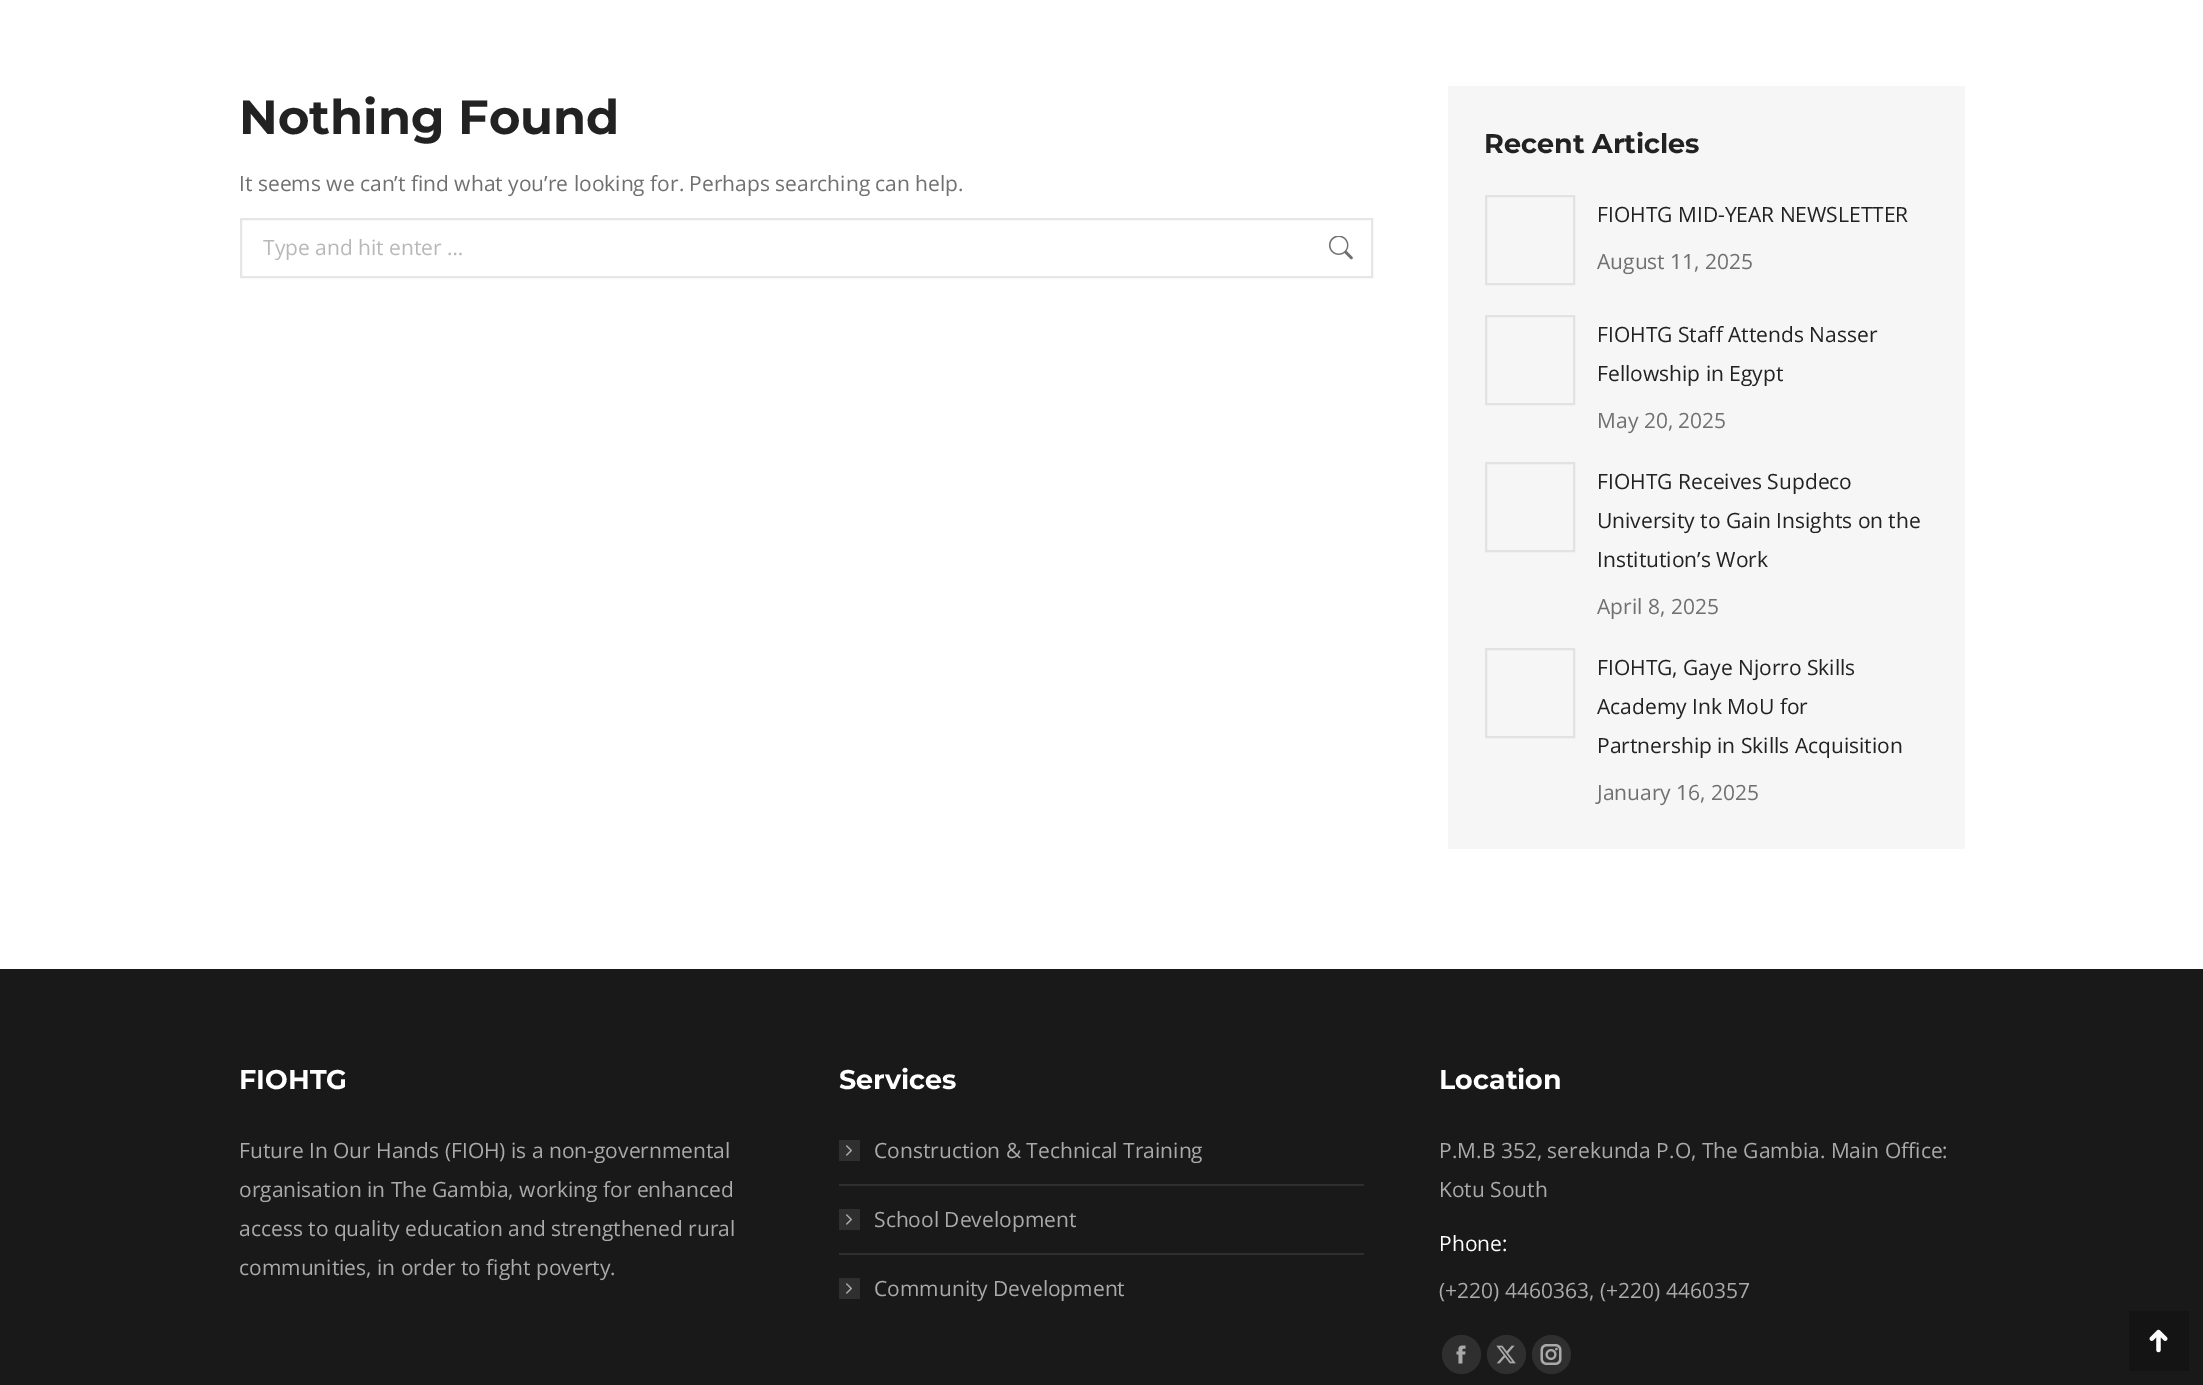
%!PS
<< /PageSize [2203 1385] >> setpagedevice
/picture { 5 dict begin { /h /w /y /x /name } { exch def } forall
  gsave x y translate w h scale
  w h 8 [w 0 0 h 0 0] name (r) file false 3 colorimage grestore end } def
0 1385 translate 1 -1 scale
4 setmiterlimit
1 setgray
0 0 2203 1385 rectfill
/Montserrat-Bold [48 0 0 -48 0 0] selectfont
0.133 setgray
239 134 moveto (Nothing Found) show
/OpenSans-Regular [21 0 0 -21 0 0] selectfont
0.439 setgray
239 191 moveto (It seems we can’t find what you’re looking for. Perhaps searching can help.) show
0.902 setgray
2 setlinewidth
241 219 1131 58 rectstroke
0.722 setgray
263 255 moveto (Type and hit enter …) show
(img1.rgb) 1329 236 24 24 picture
0.965 setgray
1448 86 517 763 rectfill
/Montserrat-Bold [27 0 0 -27 0 0] selectfont
0.133 setgray
1484 153 moveto (Recent Articles) show
0.886 setgray
1486 196 88 88 rectstroke
/OpenSans-Regular [21 0 0 -21 0 0] selectfont
0.133 setgray
1597 222 moveto (FIOHTG MID-YEAR NEWSLETTER) show
0.439 setgray
1597 269 moveto (August 11, 2025) show
0.886 setgray
1486 316 88 88 rectstroke
0.133 setgray
1597 342 moveto (FIOHTG Staff Attends Nasser) show
1597 381 moveto (Fellowship in Egypt) show
0.439 setgray
1597 428 moveto (May 20, 2025) show
0.886 setgray
1486 463 88 88 rectstroke
0.133 setgray
1597 489 moveto (FIOHTG Receives Supdeco) show
1597 528 moveto (University to Gain Insights on the) show
1597 567 moveto (Institution’s Work) show
0.439 setgray
1597 614 moveto (April 8, 2025) show
0.886 setgray
1486 649 88 88 rectstroke
0.133 setgray
1597 675 moveto (FIOHTG, Gaye Njorro Skills) show
1597 714 moveto (Academy Ink MoU for) show
1597 753 moveto (Partnership in Skills Acquisition) show
0.439 setgray
1597 800 moveto (January 16, 2025) show
0.098 setgray
0 969 2203 416 rectfill
/Montserrat-Bold [27 0 0 -27 0 0] selectfont
1 setgray
239 1089 moveto (FIOHTG) show
/OpenSans-Regular [21 0 0 -21 0 0] selectfont
0.667 setgray
239 1158 moveto (Future In Our Hands \(FIOH\) is a non-governmental) show
239 1197 moveto (organisation in The Gambia, working for enhanced) show
239 1236 moveto (access to quality education and strengthened rural) show
239 1275 moveto (communities, in order to fight poverty.) show
/Montserrat-Bold [27 0 0 -27 0 0] selectfont
1 setgray
839 1089 moveto (Services) show
0.184 setgray
839 1140 21 21 rectfill
/OpenSans-Regular [21 0 0 -21 0 0] selectfont
0.667 setgray
874 1158 moveto (Construction & Technical Training) show
(img2.rgb) 846 1145 6 11 picture
0.184 setgray
839 1184 525 2 rectfill
839 1209 21 21 rectfill
0.667 setgray
874 1227 moveto (School Development) show
(img2.rgb) 846 1214 6 11 picture
0.184 setgray
839 1253 525 2 rectfill
839 1278 21 21 rectfill
0.667 setgray
874 1296 moveto (Community Development) show
(img2.rgb) 846 1283 6 11 picture
/Montserrat-Bold [27 0 0 -27 0 0] selectfont
1 setgray
1439 1089 moveto (Location) show
/OpenSans-Regular [21 0 0 -21 0 0] selectfont
0.667 setgray
1439 1158 moveto (P.M.B 352, serekunda P.O, The Gambia. Main Office:) show
1439 1197 moveto (Kotu South) show
1 setgray
1439 1251 moveto (Phone:) show
0.667 setgray
1439 1298 moveto (\(+220\) 4460363, \(+220\) 4460357) show
0.184 setgray
newpath 1461.5 1354.5 19.5 0 360 arc closepath fill
(img3.rgb) 1456 1345 10 19 picture
newpath 1506.5 1354.5 19.5 0 360 arc closepath fill
(img4.rgb) 1496 1345 20 19 picture
newpath 1551.5 1354.5 19.5 0 360 arc closepath fill
(img5.rgb) 1540 1344 22 21 picture
0.078 setgray
2129 1311 60 60 rectfill
(img6.rgb) 2149 1329 19 24 picture
showpage
